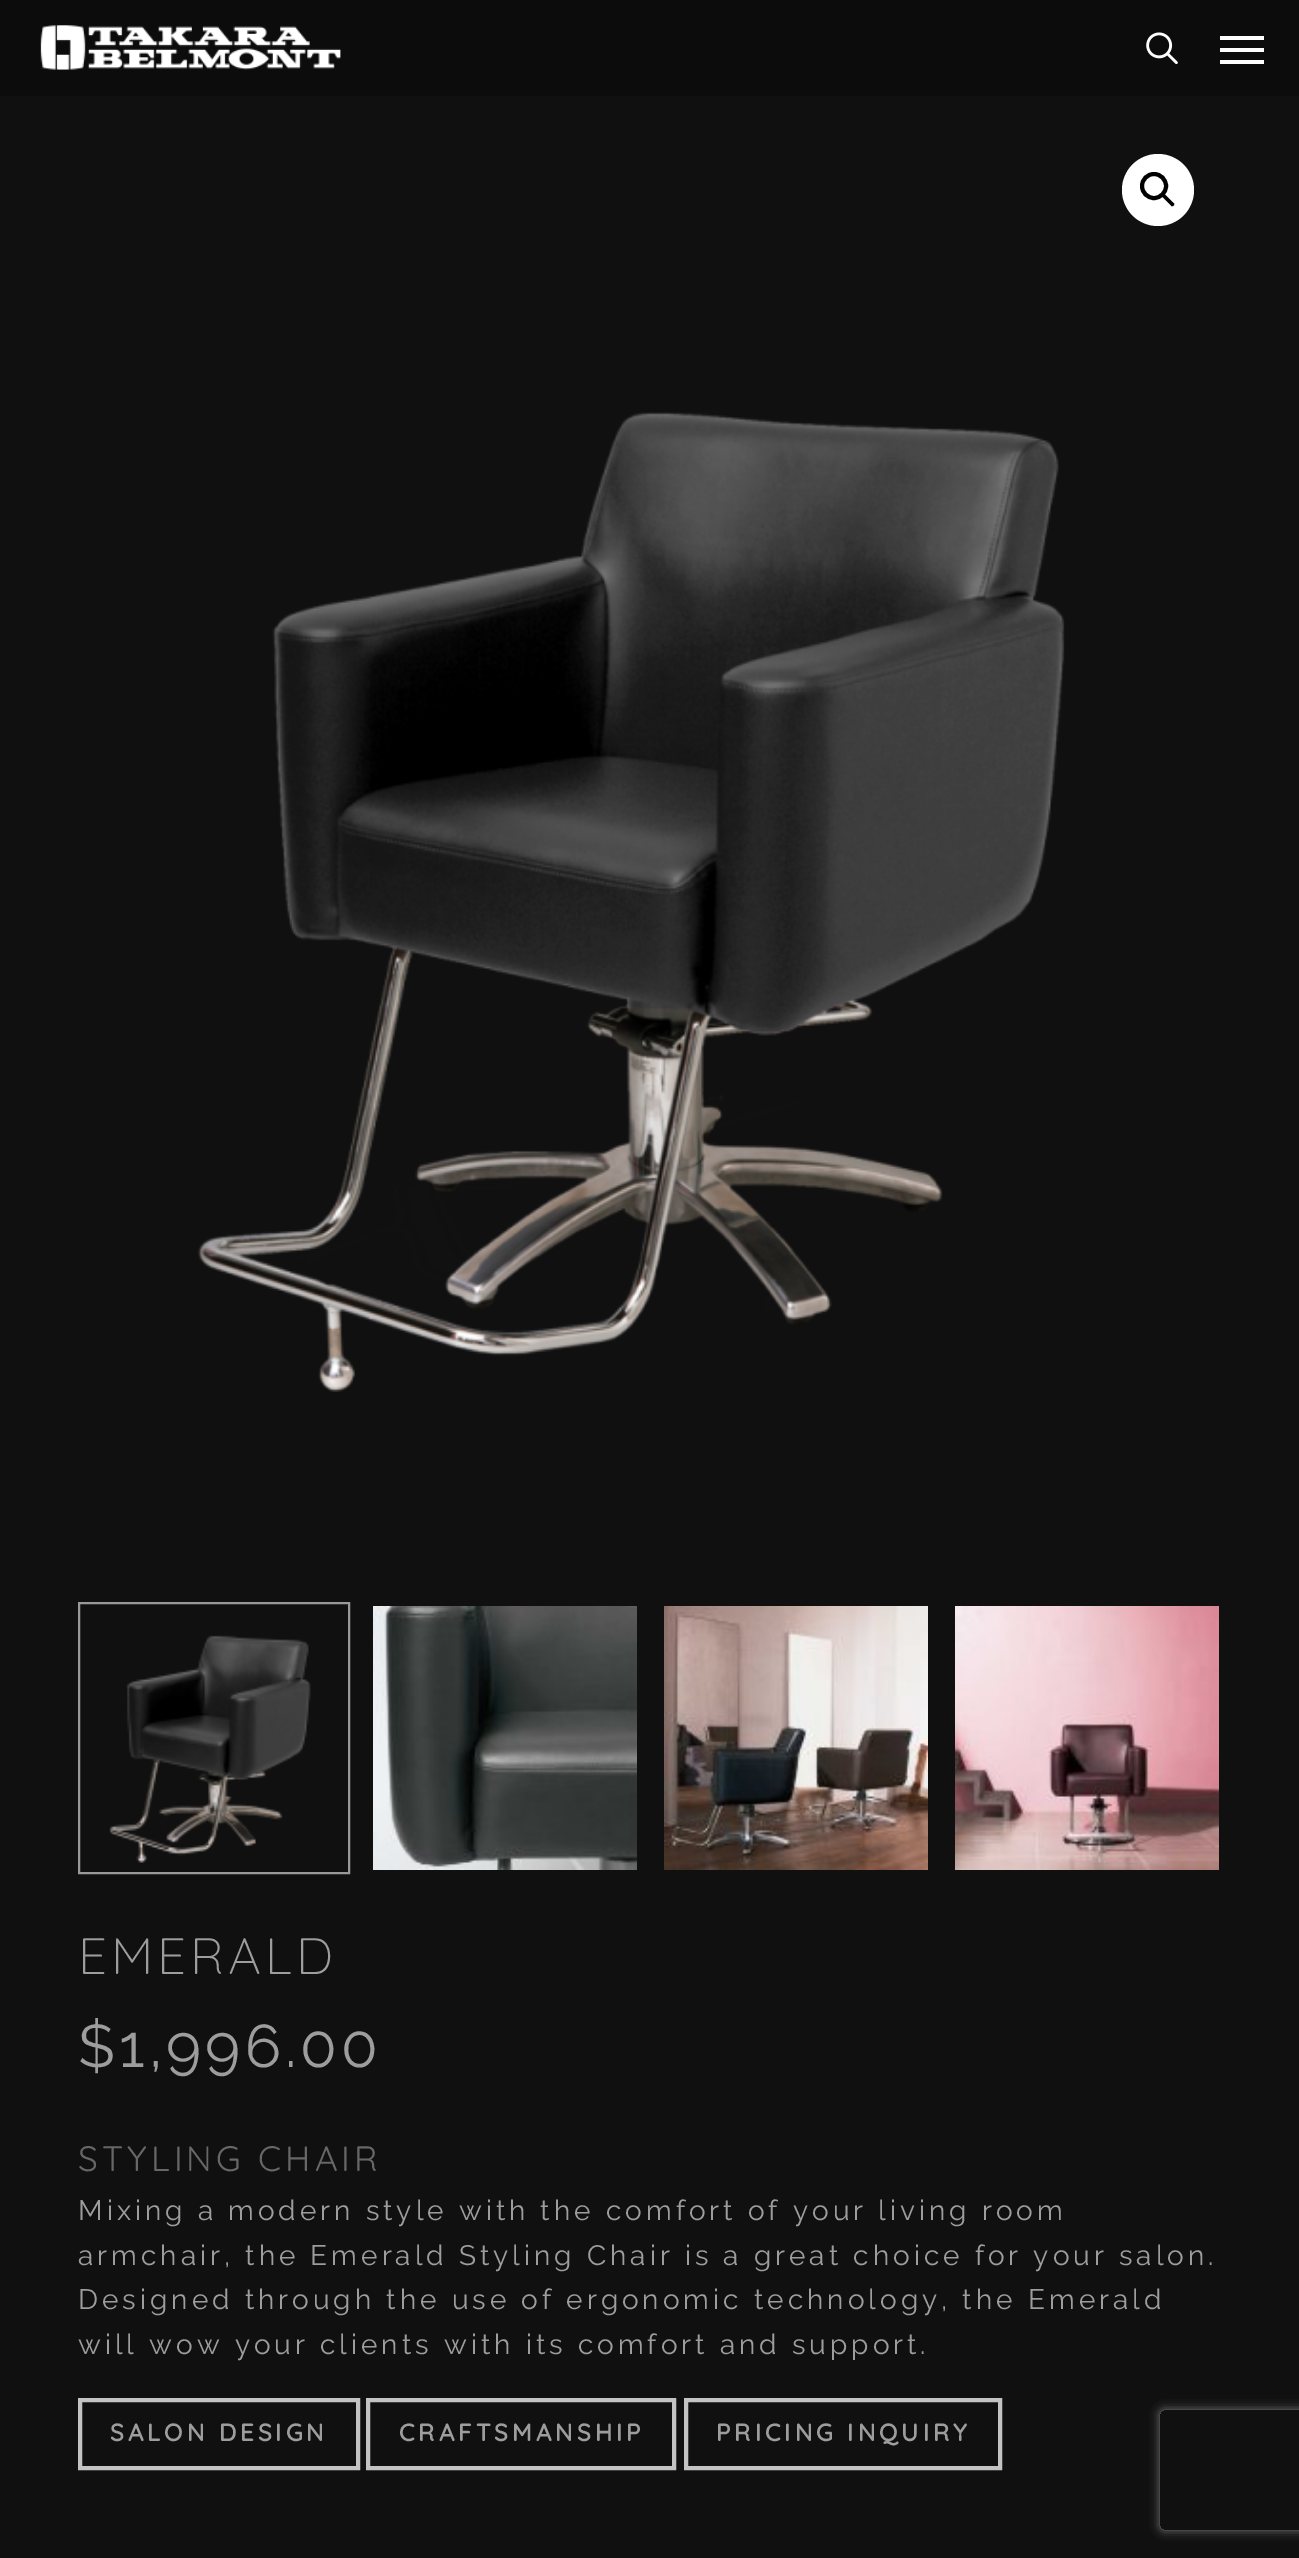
%!PS
<< /PageSize [1299 2558] /PageUsesTransparency true >> setpagedevice
/alpha { dup .setfillconstantalpha .setstrokeconstantalpha } def
/roundrect { 5 dict begin { /r /h /w /y /x } { exch def } forall
  x r add y moveto x w add y 2 copy h add r arct x w add y h add x 1 index r arct
  x y h add x y r arct x y 2 copy exch w add exch r arct closepath end } def
/shadow { 12 dict begin { /a /b /q /h /w /y /x } { exch def } forall gsave /was 0 def
  9 -2 -9 { dup b mul 4 div /e exch def 1 sub .425 mul 2.718 exch exp 1 add a .99 .min exch div /now exch def
    1 1 now sub 1 was sub div sub alpha /was now def
    w h .min e 2 mul add 0 gt { x e sub y e sub w e 2 mul add h e 2 mul add
      q e add b .6 mul add w h .min 2 div e add .min 0 .max roundrect fill } if } for grestore end } def
/picture { 5 dict begin { /h /w /y /x /name } { exch def } forall
  gsave x y translate w h scale
  w h 8 [w 0 0 h 0 0] name (r) file false 3 colorimage grestore end } def
0 .pushpdf14devicefilter
0 2558 translate 1 -1 scale
4 setmiterlimit
0.063 setgray
0 0 1299 2558 rectfill
0.047 setgray
0 0 1299 96 rectfill
(img1.rgb) 40 25 301 45 picture
(img2.rgb) 1146 32 32 33 picture
1 setgray
1220 36 44 4 rectfill
1220 60 44 4 rectfill
1220 48 44 4 rectfill
newpath 1158 190 36 0 360 arc closepath fill
0 setgray
4 setlinewidth
newpath 1154 186 12 0 360 arc closepath stroke
newpath 1162.5 194.5 moveto 1163 193.5 1164.5 193.5 1165 194.5 curveto 1173.5 203 lineto 1174.5 203.5 1174.5 205 1173.5 205.5 curveto 1173 206.5 1171.5 206.5 1171 205.5 curveto 1162.5 197 lineto 1161.5 196.5 1161.5 195 1162.5 194.5 curveto closepath fill
(img3.rgb) 198 412 867 980 picture
0.6 setgray
2 setlinewidth
79 1603 270 270 rectstroke
(img4.rgb) 109 1635 202 228 picture
(img5.rgb) 373 1606 264 264 picture
(img6.rgb) 664 1606 264 264 picture
(img7.rgb) 955 1606 264 264 picture
/Quicksand-Light [51 0 0 -51 0 0] selectfont
0.62 0.616 0.616 setrgbcolor
78 1974 moveto 4 0 (EMERALD) ashow
/Raleway-Regular [60 0 0 -60 0 0] selectfont
78 2067 moveto 4 0 ($1,996.00) ashow
/Quicksand-Regular [35.25 0 0 -35.25 0 0] selectfont
0.404 setgray
78 2171 moveto 4 0 (STYLING CHAIR) ashow
/Raleway-Regular [28 0 0 -28 0 0] selectfont
0.62 0.616 0.616 setrgbcolor
78 2220 moveto 4 0 (Mixing a modern style with the comfort of your living room) ashow
78 2265 moveto 4 0 (armchair, the Emerald Styling Chair is a great choice for your salon.) ashow
78 2309 moveto 4 0 (Designed through the use of ergonomic technology, the Emerald) ashow
78 2354 moveto 4 0 (will wow your clients with its comfort and support.) ashow
0.765 setgray
4 setlinewidth
80 2400 278 68 rectstroke
/Quicksand-Bold [24 0 0 -24 0 0] selectfont
0.62 0.616 0.616 setrgbcolor
110 2441 moveto 4 0 (SALON DESIGN) ashow
0.765 setgray
368 2400 306 68 rectstroke
0.62 0.616 0.616 setrgbcolor
399 2441 moveto 4 0 (CRAFTSMANSHIP) ashow
0.765 setgray
686 2400 314 68 rectstroke
0.62 0.616 0.616 setrgbcolor
716 2441 moveto 4 0 (PRICING INQUIRY) ashow
gsave
newpath 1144 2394 moveto 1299 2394 lineto 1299 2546 lineto 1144 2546 lineto closepath 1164 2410 moveto 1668 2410 lineto 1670 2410 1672 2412 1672 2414 curveto 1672 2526 lineto 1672 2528 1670 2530 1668 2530 curveto 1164 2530 lineto 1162 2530 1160 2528 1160 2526 curveto 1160 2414 lineto 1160 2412 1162 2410 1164 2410 curveto closepath eoclip newpath
0.502 setgray
1160 2410 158 120 4 5 1 shadow
grestore
.poppdf14devicefilter showpage
